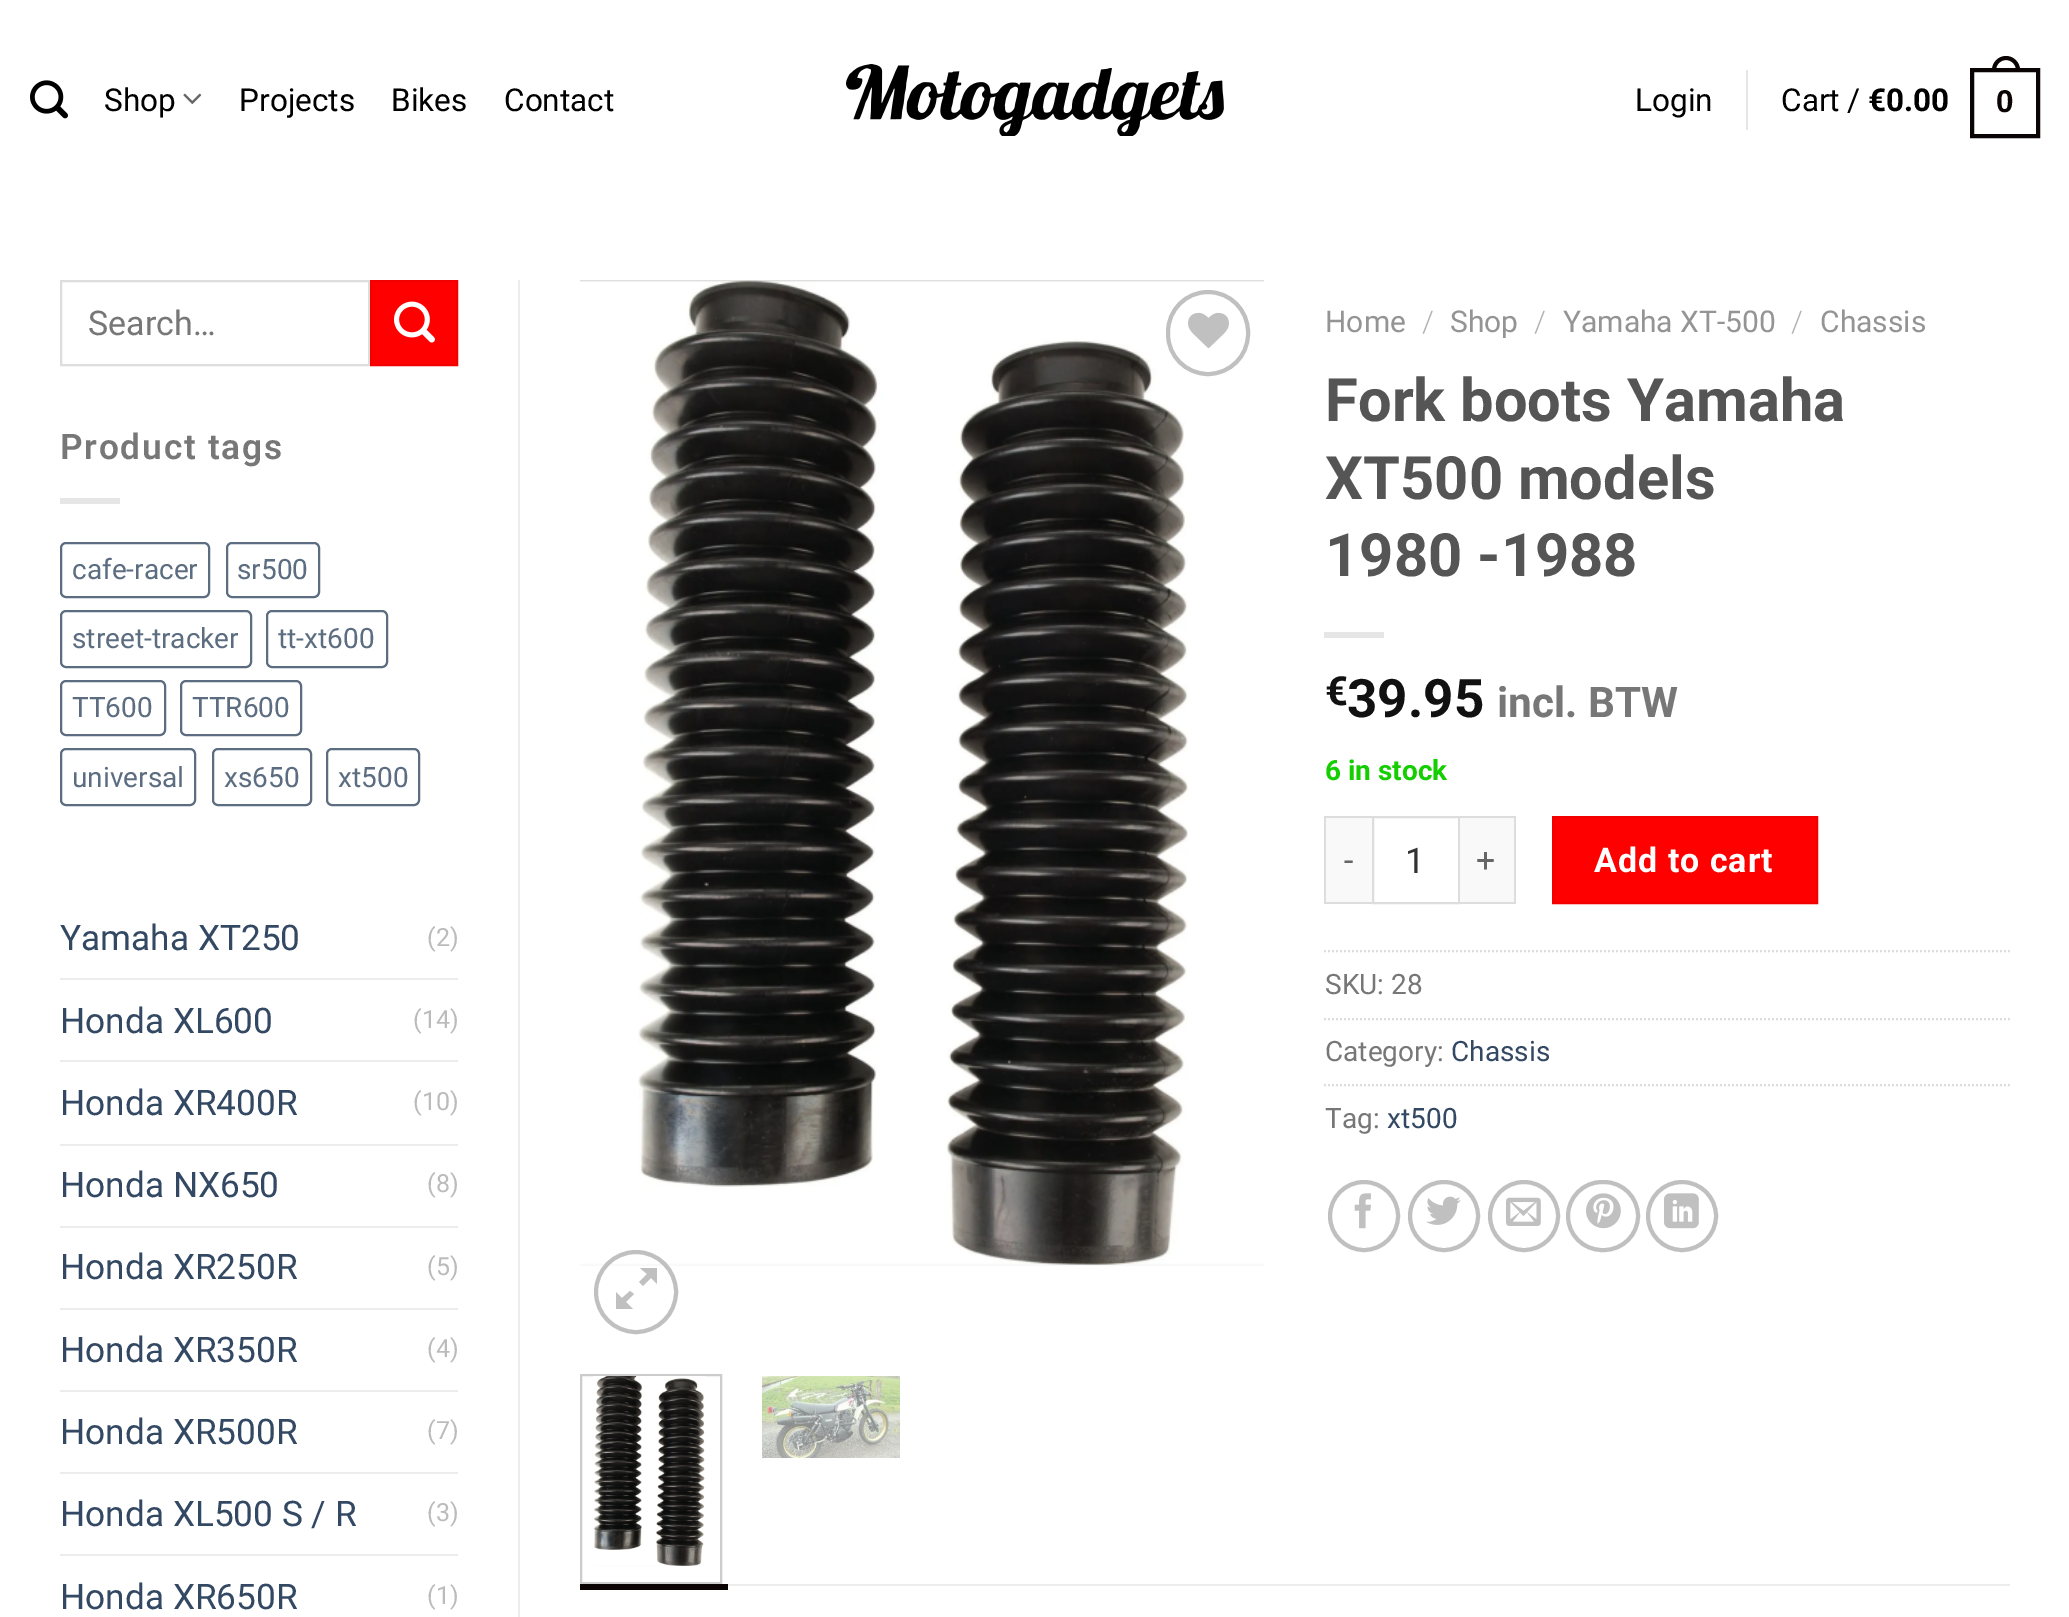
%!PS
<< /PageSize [2069 1617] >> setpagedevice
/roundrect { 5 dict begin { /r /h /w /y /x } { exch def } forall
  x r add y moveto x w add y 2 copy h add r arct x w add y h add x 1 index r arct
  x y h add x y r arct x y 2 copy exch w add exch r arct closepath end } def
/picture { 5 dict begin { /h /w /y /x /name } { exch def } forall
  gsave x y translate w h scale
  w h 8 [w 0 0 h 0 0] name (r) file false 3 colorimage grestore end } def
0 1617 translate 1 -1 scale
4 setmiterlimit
1 setgray
0 0 2069 1617 rectfill
(img1.rgb) 30 80 38 39 picture
/Roboto-Regular [31.5 0 0 -31.5 0 0] selectfont
0 setgray
104 111 moveto (Shop) show
(img2.rgb) 183 93 19 11 picture
239 111 moveto (Projects) show
391 111 moveto (Bikes) show
504 111 moveto (Contact) show
(img3.rgb) 846 64 378 72 picture
1635 111 moveto (Login) show
0.902 setgray
1746 70 2 60 rectfill
0 setgray
1781 111 moveto (Cart /) show
/Roboto-Bold [31.5 0 0 -31.5 0 0] selectfont
1868 111 moveto (€0.00) show
0.039 0.016 0.016 setrgbcolor
4 setlinewidth
1972 70 66 66 rectstroke
newpath 2006 56 moveto 2013.5 56 2020 62.5 2020 70 curveto 2020 72 lineto 1992 72 lineto 1992 70 lineto 1992 62.5 1998.5 56 2006 56 curveto closepath 2006 60 moveto 2011.5 60 2016 64.5 2016 70 curveto 2016 72 lineto 1996 72 lineto 1996 70 lineto 1996 64.5 2000.5 60 2006 60 curveto closepath eofill
/LiberationSans-Bold [31.5 0 0 -31.5 0 0] selectfont
1996 112 moveto (0) show
0.867 setgray
2 setlinewidth
61 281 308 84 rectstroke
/Roboto-Regular [34 0 0 -34 0 0] selectfont
0.467 setgray
88 335 moveto (Search…) show
1 0 0 setrgbcolor
newpath 371 281 moveto 457 281 lineto 457 365 lineto 371 365 lineto closepath gsave fill grestore
0.949 0 0 setrgbcolor
stroke
(img4.rgb) 394 301 41 42 picture
/Roboto-SemiBold [35.25 0 0 -35.25 0 0] selectfont
0.467 setgray
60 459 moveto 1.75 0 (Product tags) ashow
0.902 setgray
60 498 60 6 rectfill
0.361 0.427 0.506 setrgbcolor
61 543 148 54 5 roundrect stroke
/Roboto-Regular [28 0 0 -28 0 0] selectfont
72 579 moveto (cafe-racer) show
227 543 92 54 5 roundrect stroke
237 579 moveto (sr500) show
61 611 190 56 5 roundrect stroke
72 648 moveto (street-tracker) show
267 611 120 56 5 roundrect stroke
278 648 moveto (tt-xt600) show
61 681 104 54 5 roundrect stroke
72 717 moveto (TT600) show
181 681 120 54 5 roundrect stroke
192 717 moveto (TTR600) show
61 749 134 56 5 roundrect stroke
72 787 moveto (universal) show
213 749 98 56 5 roundrect stroke
224 787 moveto (xs650) show
327 749 92 56 5 roundrect stroke
338 787 moveto (xt500) show
/Roboto-Regular [35.25 0 0 -35.25 0 0] selectfont
0.2 0.282 0.384 setrgbcolor
60 950 moveto (Yamaha XT250) show
/Roboto-Regular [25 0 0 -25 0 0] selectfont
0.733 setgray
427 946 moveto (\(2\)) show
0.925 setgray
60 978 398 2 rectfill
/Roboto-Regular [35.25 0 0 -35.25 0 0] selectfont
0.2 0.282 0.384 setrgbcolor
60 1033 moveto (Honda XL600) show
/Roboto-Regular [25 0 0 -25 0 0] selectfont
0.733 setgray
413 1028 moveto (\(14\)) show
0.925 setgray
60 1060 398 2 rectfill
/Roboto-Regular [35.25 0 0 -35.25 0 0] selectfont
0.2 0.282 0.384 setrgbcolor
60 1115 moveto (Honda XR400R) show
/Roboto-Regular [25 0 0 -25 0 0] selectfont
0.733 setgray
413 1110 moveto (\(10\)) show
0.925 setgray
60 1144 398 2 rectfill
/Roboto-Regular [35.25 0 0 -35.25 0 0] selectfont
0.2 0.282 0.384 setrgbcolor
60 1197 moveto (Honda NX650) show
/Roboto-Regular [25 0 0 -25 0 0] selectfont
0.733 setgray
427 1192 moveto (\(8\)) show
0.925 setgray
60 1226 398 2 rectfill
/Roboto-Regular [35.25 0 0 -35.25 0 0] selectfont
0.2 0.282 0.384 setrgbcolor
60 1279 moveto (Honda XR250R) show
/Roboto-Regular [25 0 0 -25 0 0] selectfont
0.733 setgray
427 1275 moveto (\(5\)) show
0.925 setgray
60 1308 398 2 rectfill
/Roboto-Regular [35.25 0 0 -35.25 0 0] selectfont
0.2 0.282 0.384 setrgbcolor
60 1362 moveto (Honda XR350R) show
/Roboto-Regular [25 0 0 -25 0 0] selectfont
0.733 setgray
427 1357 moveto (\(4\)) show
0.925 setgray
60 1390 398 2 rectfill
/Roboto-Regular [35.25 0 0 -35.25 0 0] selectfont
0.2 0.282 0.384 setrgbcolor
60 1444 moveto (Honda XR500R) show
/Roboto-Regular [25 0 0 -25 0 0] selectfont
0.733 setgray
427 1439 moveto (\(7\)) show
0.925 setgray
60 1472 398 2 rectfill
/Roboto-Regular [35.25 0 0 -35.25 0 0] selectfont
0.2 0.282 0.384 setrgbcolor
60 1526 moveto (Honda XL500 S / R) show
/Roboto-Regular [25 0 0 -25 0 0] selectfont
0.733 setgray
427 1521 moveto (\(3\)) show
0.925 setgray
60 1554 398 2 rectfill
/Roboto-Regular [35.25 0 0 -35.25 0 0] selectfont
0.2 0.282 0.384 setrgbcolor
60 1609 moveto (Honda XR650R) show
/Roboto-Regular [25 0 0 -25 0 0] selectfont
0.733 setgray
427 1604 moveto (\(1\)) show
0.925 setgray
518 280 2 1337 rectfill
(img5.rgb) 580 280 684 986 picture
0.753 setgray
4 setlinewidth
1168 292 80 82 40 roundrect stroke
(img6.rgb) 1188 312 41 36 picture
newpath 636 1292 40 0 360 arc closepath stroke
newpath 657 1268 moveto 657 1284 lineto 651 1278 lineto 643 1286 lineto 639 1282 lineto 647 1274 lineto 640 1268 lineto closepath 634 1294 moveto 626 1302 lineto 633 1309 lineto 616 1309 lineto 616 1292 lineto 622 1298 lineto 630 1291 lineto closepath fill
0.8 setgray
2 setlinewidth
581 1375 140 208 rectstroke
(img7.rgb) 593 1376 112 190 picture
(img8.rgb) 762 1376 138 82 picture
/Roboto-Regular [30 0 0 -30 0 0] selectfont
0.58 setgray
1325 332 moveto (Home) show
/Roboto-Light [30 0 0 -30 0 0] selectfont
0.698 setgray
1422 332 moveto (/) show
/Roboto-Regular [30 0 0 -30 0 0] selectfont
0.58 setgray
1450 332 moveto (Shop) show
/Roboto-Light [30 0 0 -30 0 0] selectfont
0.698 setgray
1534 332 moveto (/) show
/Roboto-Regular [30 0 0 -30 0 0] selectfont
0.58 setgray
1563 332 moveto (Yamaha XT-500) show
/Roboto-Light [30 0 0 -30 0 0] selectfont
0.698 setgray
1791 332 moveto (/) show
/Roboto-Regular [30 0 0 -30 0 0] selectfont
0.58 setgray
1820 332 moveto (Chassis) show
/Roboto-Bold [59.75 0 0 -59.75 0 0] selectfont
0.333 setgray
1325 421 moveto (Fork boots Yamaha) show
1325 499 moveto (XT500 models) show
1325 576 moveto (1980 -1988) show
0.902 setgray
1324 632 60 6 rectfill
/Roboto-Bold [40 0 0 -40 0 0] selectfont
0.067 setgray
1325 705 moveto (€) show
/Roboto-Bold [53 0 0 -53 0 0] selectfont
1347 717 moveto (39.95) show
/Roboto-Bold [42.25 0 0 -42.25 0 0] selectfont
0.467 setgray
1497 717 moveto (incl. BTW) show
/Roboto-Bold [28 0 0 -28 0 0] selectfont
0.078 0.808 0 setrgbcolor
1325 780 moveto (6 in stock) show
0.976 setgray
1326 818 46 84 rectfill
0.867 setgray
1324 816 48 2 rectfill
1324 902 48 2 rectfill
1324 816 2 88 rectfill
/Roboto-Regular [34 0 0 -34 0 0] selectfont
0.4 setgray
1344 872 moveto 1 0 (-) ashow
0.867 setgray
1373 817 86 86 rectstroke
/Roboto-Regular [35.25 0 0 -35.25 0 0] selectfont
0.2 setgray
1405 873 moveto (1) show
0.976 setgray
1460 818 54 84 rectfill
0.867 setgray
1460 816 56 2 rectfill
1514 816 2 88 rectfill
1460 902 56 2 rectfill
/Roboto-Regular [34 0 0 -34 0 0] selectfont
0.4 setgray
1476 872 moveto 1 0 (+) ashow
1 0 0 setrgbcolor
newpath 1553 817 moveto 1817 817 lineto 1817 903 lineto 1553 903 lineto closepath gsave fill grestore
0.949 0 0 setrgbcolor
stroke
/Roboto-Bold [34 0 0 -34 0 0] selectfont
1 setgray
1594 872 moveto 1 0 (Add to cart) ashow
0.867 setgray
[2 2] 0 setdash
newpath 1324 951 moveto 2010 951 lineto stroke
/Roboto-Regular [28 0 0 -28 0 0] selectfont
0.467 setgray
1325 994 moveto (SKU: 28) show
0.867 setgray
newpath 1324 1019 moveto 2010 1019 lineto stroke
0.467 setgray
1325 1061 moveto (Category:) show
0.2 0.282 0.384 setrgbcolor
1451 1061 moveto (Chassis) show
0.867 setgray
newpath 1324 1085 moveto 2010 1085 lineto stroke
0.467 setgray
1325 1128 moveto (Tag:) show
0.2 0.282 0.384 setrgbcolor
1387 1128 moveto (xt500) show
0.753 setgray
4 setlinewidth
[] 0 setdash
newpath 1364 1216 34 0 360 arc closepath stroke
(img9.rgb) 1354 1193 17 36 picture
newpath 1444 1216 34 0 360 arc closepath stroke
(img10.rgb) 1426 1196 35 29 picture
newpath 1524 1216 34 0 360 arc closepath stroke
(img11.rgb) 1506 1197 35 29 picture
1568 1182 70 68 34 roundrect stroke
(img12.rgb) 1586 1193 35 36 picture
newpath 1682 1216 34 0 360 arc closepath stroke
(img13.rgb) 1664 1193 35 36 picture
0.925 setgray
728 1584 1282 2 rectfill
0.039 0.016 0.016 setrgbcolor
580 1584 148 6 rectfill
showpage
